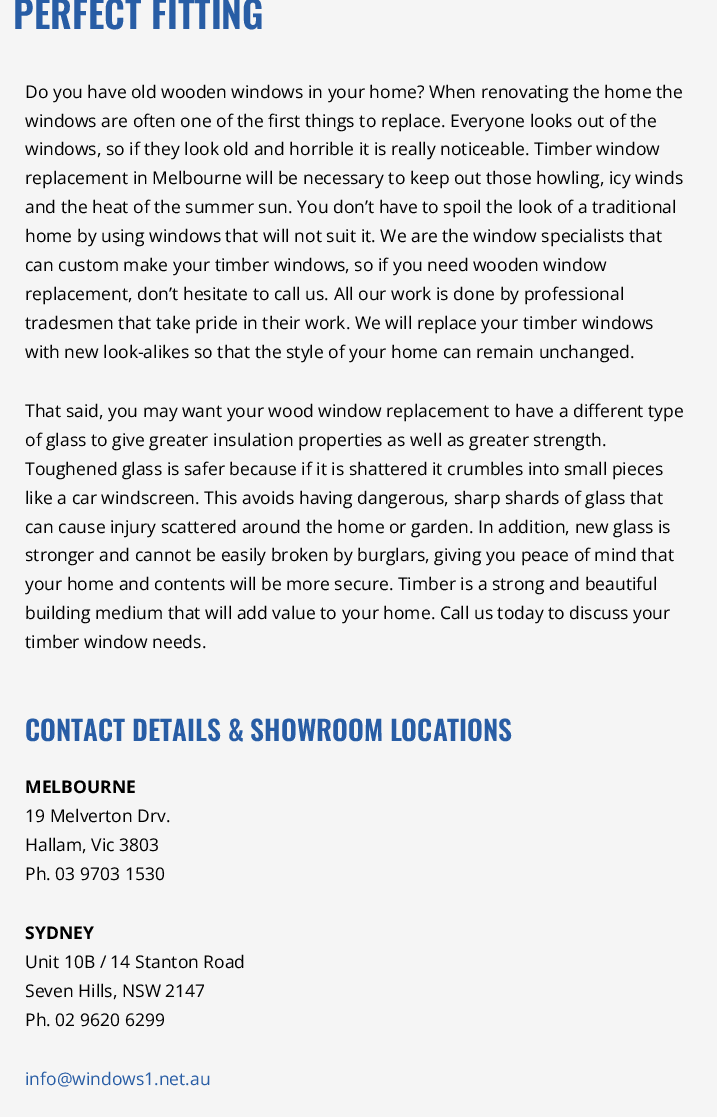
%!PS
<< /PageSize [717 1117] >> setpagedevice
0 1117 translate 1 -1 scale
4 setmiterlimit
0.961 setgray
0 0 717 1117 rectfill
/Oswald-SemiBold [37.5 0 0 -37.5 0 0] selectfont
0.157 0.365 0.647 setrgbcolor
13 29 moveto (PERFECT FITTING) show
/OpenSans-Regular [17.5 0 0 -17.5 0 0] selectfont
0 setgray
25 98 moveto (Do you have old wooden windows in your home? When renovating the home the) show
25 127 moveto (windows are often one of the first things to replace. Everyone looks out of the) show
25 155 moveto (windows, so if they look old and horrible it is really noticeable. Timber window) show
25 184 moveto (replacement in Melbourne will be necessary to keep out those howling, icy winds) show
25 213 moveto (and the heat of the summer sun. You don’t have to spoil the look of a traditional) show
25 242 moveto (home by using windows that will not suit it. We are the window specialists that) show
25 271 moveto (can custom make your timber windows, so if you need wooden window) show
25 300 moveto (replacement, don’t hesitate to call us. All our work is done by professional) show
25 329 moveto (tradesmen that take pride in their work. We will replace your timber windows) show
25 358 moveto (with new look-alikes so that the style of your home can remain unchanged.) show
25 417 moveto (That said, you may want your wood window replacement to have a different type) show
25 446 moveto (of glass to give greater insulation properties as well as greater strength.) show
25 475 moveto (Toughened glass is safer because if it is shattered it crumbles into small pieces) show
25 504 moveto (like a car windscreen. This avoids having dangerous, sharp shards of glass that) show
25 533 moveto (can cause injury scattered around the home or garden. In addition, new glass is) show
25 561 moveto (stronger and cannot be easily broken by burglars, giving you peace of mind that) show
25 590 moveto (your home and contents will be more secure. Timber is a strong and beautiful) show
25 619 moveto (building medium that will add value to your home. Call us today to discuss your) show
25 648 moveto (timber window needs.) show
/Oswald-SemiBold [27.5 0 0 -27.5 0 0] selectfont
0.157 0.365 0.647 setrgbcolor
25 741 moveto (CONTACT DETAILS & SHOWROOM LOCATIONS) show
/OpenSans-Bold [17.5 0 0 -17.5 0 0] selectfont
0 setgray
25 793 moveto (MELBOURNE) show
/OpenSans-Regular [17.5 0 0 -17.5 0 0] selectfont
25 822 moveto (19 Melverton Drv.) show
25 851 moveto (Hallam, Vic 3803) show
25 880 moveto (Ph. 03 9703 1530) show
/OpenSans-Bold [17.5 0 0 -17.5 0 0] selectfont
25 939 moveto (SYDNEY) show
/OpenSans-Regular [17.5 0 0 -17.5 0 0] selectfont
25 968 moveto (Unit 10B / 14 Stanton Road) show
25 997 moveto (Seven Hills, NSW 2147) show
25 1026 moveto (Ph. 02 9620 6299) show
0.157 0.365 0.647 setrgbcolor
25 1085 moveto (info@windows1.net.au) show
showpage
